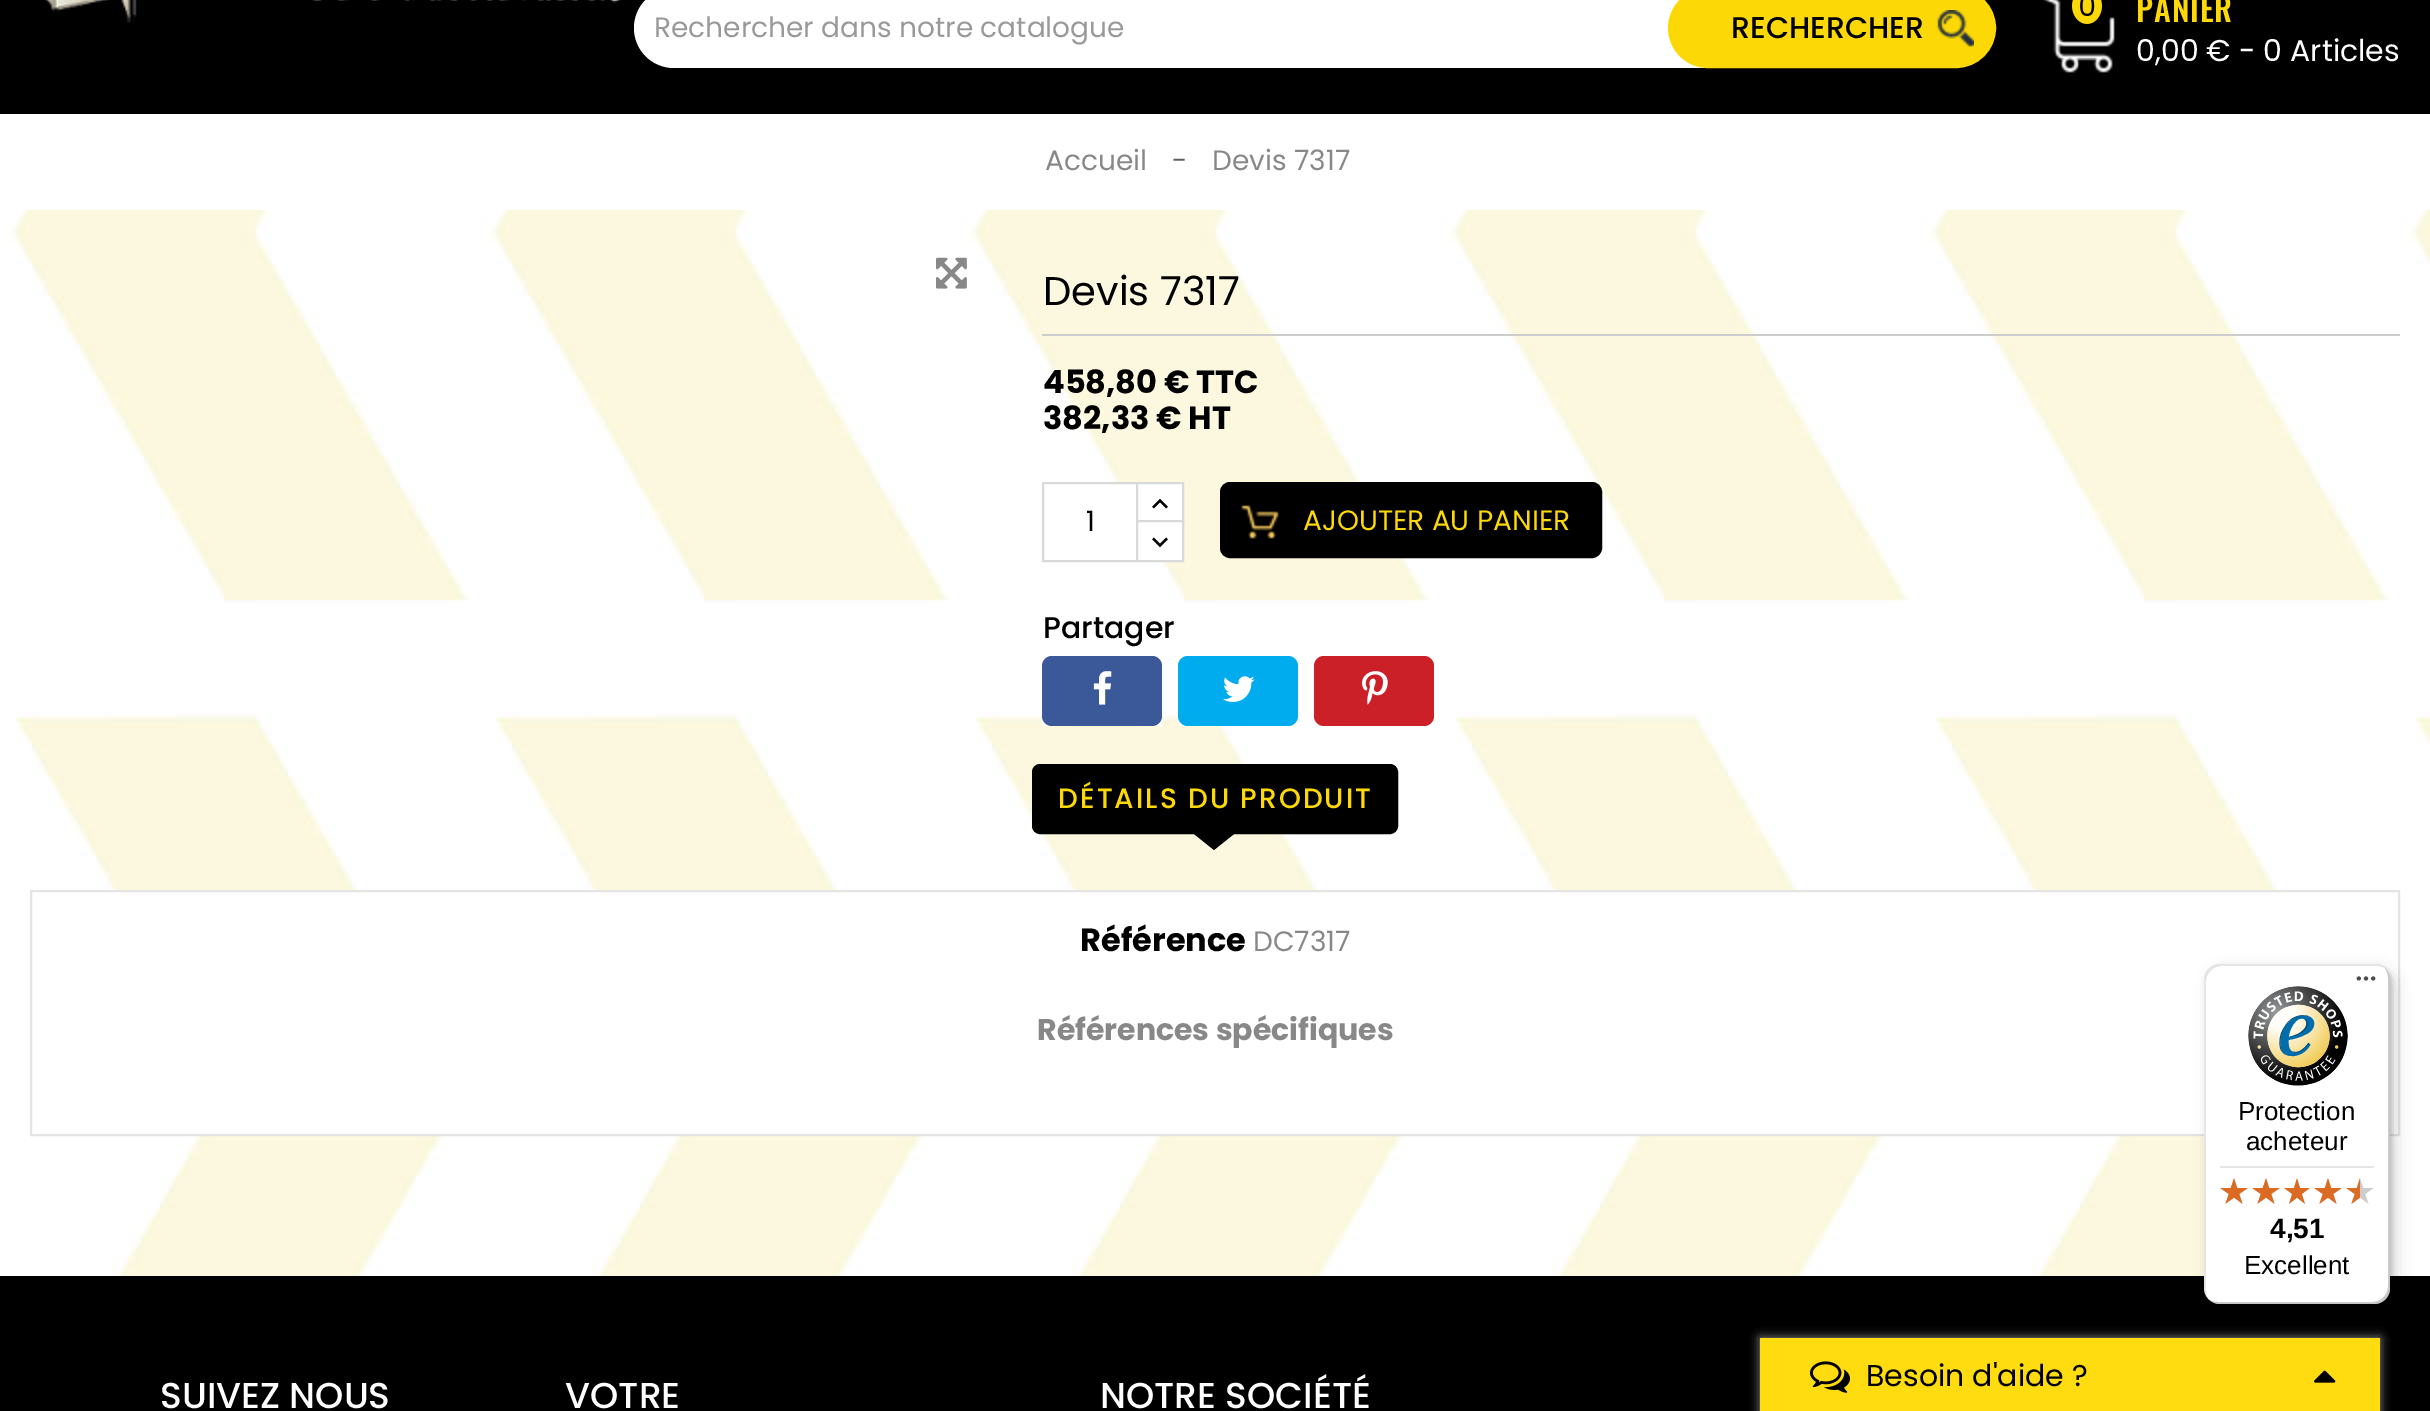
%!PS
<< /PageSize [2430 1411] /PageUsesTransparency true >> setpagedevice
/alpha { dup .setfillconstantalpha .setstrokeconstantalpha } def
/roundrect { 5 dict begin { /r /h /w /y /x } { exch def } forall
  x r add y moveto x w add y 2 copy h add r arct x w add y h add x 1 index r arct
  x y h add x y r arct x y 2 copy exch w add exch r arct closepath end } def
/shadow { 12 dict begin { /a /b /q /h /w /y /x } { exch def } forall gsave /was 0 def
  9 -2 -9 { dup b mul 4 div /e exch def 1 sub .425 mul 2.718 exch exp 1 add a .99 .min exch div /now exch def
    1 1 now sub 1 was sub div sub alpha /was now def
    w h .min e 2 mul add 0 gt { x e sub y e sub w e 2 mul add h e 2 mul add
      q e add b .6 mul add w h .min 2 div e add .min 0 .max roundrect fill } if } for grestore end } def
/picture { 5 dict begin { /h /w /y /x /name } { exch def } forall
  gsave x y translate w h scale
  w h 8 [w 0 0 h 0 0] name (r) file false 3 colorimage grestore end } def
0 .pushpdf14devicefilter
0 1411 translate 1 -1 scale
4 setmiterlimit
1 setgray
0 0 2430 1411 rectfill
(img1.rgb) 9 210 2421 1066 picture
0 setgray
0 0 2430 114 rectfill
(img2.rgb) 45 0 576 23 picture
1 setgray
newpath 674 -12 moveto 1796 -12 lineto 1796 68 lineto 674 68 lineto 652 68 634 50 634 28 curveto 634 6 652 -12 674 -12 curveto closepath fill
/Poppins-Regular [28 0 0 -28 0 0] selectfont
0.6 setgray
654 37 moveto (Rechercher dans notre catalogue) show
0.988 0.851 0.024 setrgbcolor
1669 -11 326 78 39 roundrect gsave fill grestore
2 setlinewidth
stroke
/Poppins-Medium [30 0 0 -30 0 0] selectfont
0 setgray
1731 38 moveto (RECHERCHER) show
(img3.rgb) 1937 10 37 37 picture
0.988 0.851 0.024 setrgbcolor
newpath 2087 -12 moveto 2095.5 -12 2102 -4 2102 6 curveto 2102 16 2095.5 24 2087 24 curveto 2078.5 24 2072 16 2072 6 curveto 2072 -4 2078.5 -12 2087 -12 curveto closepath fill
/Poppins-Regular [28 0 0 -28 0 0] selectfont
0 setgray
2078 16 moveto (0) show
(img4.rgb) 2043 0 72 73 picture
/Poppins-Regular [30 0 0 -30 0 0] selectfont
1 setgray
2136 61 moveto (0,00 € - 0 Articles) show
/Oswald-Medium [32 0 0 -32 0 0] selectfont
0.988 0.851 0.024 setrgbcolor
2136 22 moveto 1 0 (PANIER) ashow
/Poppins-Regular [28 0 0 -28 0 0] selectfont
0.533 setgray
1045 170 moveto (Accueil) show
0.373 setgray
1172 170 moveto (-) show
0.533 setgray
1212 170 moveto (Devis 7317) show
(img5.rgb) 936 257 31 32 picture
0.8 setgray
1042 334 1358 2 rectfill
/Poppins-Regular [40 0 0 -40 0 0] selectfont
0 setgray
1043 305 moveto (Devis 7317) show
/Poppins-Bold [32 0 0 -32 0 0] selectfont
1043 393 moveto (458,80 € TTC) show
1043 429 moveto (382,33 € HT) show
1 setgray
1105 484 31 36 rectfill
0.851 setgray
1043 483 94 78 rectstroke
/Poppins-Regular [28 0 0 -28 0 0] selectfont
0 setgray
1086 531 moveto (1) show
1 setgray
1138 484 44 36 rectfill
0.851 setgray
1137 483 46 40 rectstroke
(img6.rgb) 1152 498 16 11 picture
1 setgray
newpath 1137 521 moveto 1183 521 lineto 1183 561 lineto 1137 561 lineto closepath gsave fill grestore
0.851 setgray
stroke
(img7.rgb) 1152 537 16 11 picture
0 setgray
1221 483 380 74 9 roundrect gsave fill grestore
stroke
(img8.rgb) 1241 505 38 34 picture
0.988 0.851 0.024 setrgbcolor
1303 530 moveto (AJOUTER AU PANIER) show
/Poppins-Medium [30 0 0 -30 0 0] selectfont
0 setgray
1043 638 moveto (Partager) show
1 setgray
1042 714 120 12 rectfill
0.231 0.349 0.6 setrgbcolor
1042 656 120 70 10 roundrect fill
(img9.rgb) 1093 671 19 34 picture
1 setgray
1178 714 54 12 rectfill
0 0.675 0.929 setrgbcolor
1178 656 120 70 10 roundrect fill
(img10.rgb) 1223 676 32 26 picture
0.796 0.125 0.153 setrgbcolor
1314 656 120 70 10 roundrect fill
(img11.rgb) 1362 671 26 34 picture
0 setgray
1033 765 364 68 7 roundrect gsave fill grestore
stroke
/Poppins-Medium [28 0 0 -28 0 0] selectfont
0.988 0.851 0.024 setrgbcolor
1058 808 moveto 2 0 (DÉTAILS DU PRODUIT) ashow
0 setgray
newpath 1194 834 moveto 1234 834 lineto 1214 850 lineto closepath fill
1 setgray
112 892 2286 242 rectfill
0.894 setgray
31 891 2368 244 rectstroke
/Poppins-Bold [32 0 0 -32 0 0] selectfont
0 setgray
1080 951 moveto (Référence) show
/Poppins-Regular [28 0 0 -28 0 0] selectfont
0.533 setgray
1253 951 moveto (DC7317) show
/Poppins-Bold [30 0 0 -30 0 0] selectfont
1037 1040 moveto (Références spécifiques) show
0 setgray
0 1276 2430 135 rectfill
/Poppins-Medium [36 0 0 -36 0 0] selectfont
1 setgray
160 1408 moveto (SUIVEZ NOUS) show
565 1408 moveto (VOTRE) show
1100 1408 moveto (NOTRE SOCIÉTÉ) show
0 setgray
2210 970 186 340 16 8 0.15 shadow
2206 966 186 340 16 2 0.15 shadow
1 setgray
2204 964 186 340 16 roundrect fill
0.1 alpha
0 setgray
newpath 2222 966 moveto 2376 966 lineto 2380 966 2383 967 2386 969 curveto 2383 966 2379 964 2374 964 curveto 2220 964 lineto 2211 964 2204 971 2204 980 curveto 2204 1288 lineto 2204 1293 2206 1297 2209 1300 curveto 2207 1297 2206 1294 2206 1290 curveto 2206 982 lineto 2206 973 2213 966 2222 966 curveto closepath fill
0.2 alpha
newpath 2208 1299 moveto 2211 1302 2215 1304 2220 1304 curveto 2374 1304 lineto 2383 1304 2390 1297 2390 1288 curveto 2390 980 lineto 2390 975 2388 971 2385 968 curveto 2387 971 2388 974 2388 978 curveto 2388 1286 lineto 2388 1295 2381 1302 2372 1302 curveto 2218 1302 lineto 2214 1302 2211 1301 2208 1299 curveto closepath fill
0.196 setgray
newpath 2209 1299 moveto 2212 1302 2216 1304 2220 1304 curveto 2374 1304 lineto 2383 1304 2390 1297 2390 1288 curveto 2390 980 lineto 2390 976 2388 972 2385 969 curveto 2388 972 2389 975 2389 979 curveto 2389 1287 lineto 2389 1296 2382 1303 2373 1303 curveto 2219 1303 lineto 2215 1303 2212 1302 2209 1299 curveto closepath fill
0.3 alpha
1 setgray
newpath 2209 1299 moveto 2212 1302 2216 1304 2220 1304 curveto 2374 1304 lineto 2383 1304 2390 1297 2390 1288 curveto 2390 980 lineto 2390 976 2388 972 2385 969 curveto 2388 972 2389 975 2389 979 curveto 2389 1287 lineto 2389 1296 2382 1303 2373 1303 curveto 2219 1303 lineto 2215 1303 2212 1302 2209 1299 curveto closepath fill
1 alpha
(img12.rgb) 2356 976 20 5 picture
(img13.rgb) 2248 986 100 100 picture
/LiberationSans-Regular [26 0 0 -26 0 0] selectfont
0 setgray
2238 1120 moveto (Protection) show
2246 1150 moveto (acheteur) show
0.898 setgray
2220 1166 154 2 rectfill
(img14.rgb) 2220 1178 28 26 picture
(img14.rgb) 2252 1178 28 26 picture
(img15.rgb) 2284 1178 26 26 picture
(img14.rgb) 2314 1178 28 26 picture
(img14.rgb) 2346 1178 28 26 picture
(img16.rgb) 2220 1178 28 26 picture
(img16.rgb) 2252 1178 28 26 picture
(img17.rgb) 2284 1178 26 26 picture
(img16.rgb) 2314 1178 28 26 picture
(img18.rgb) 2346 1178 14 26 picture
/LiberationSans-Bold [28 0 0 -28 0 0] selectfont
0 setgray
2270 1238 moveto (4,51) show
/LiberationSans-Regular [26 0 0 -26 0 0] selectfont
2244 1274 moveto (Excellent) show
0.6 setgray
1760 1338 620 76 0 5 1 shadow
1 0.863 0.059 setrgbcolor
1760 1338 620 73 rectfill
(img19.rgb) 1810 1361 40 32 picture
/Poppins-Regular [30 0 0 -30 0 0] selectfont
0 setgray
1866 1386 moveto (Besoin d'aide ?) show
(img20.rgb) 2314 1370 22 13 picture
.poppdf14devicefilter showpage
